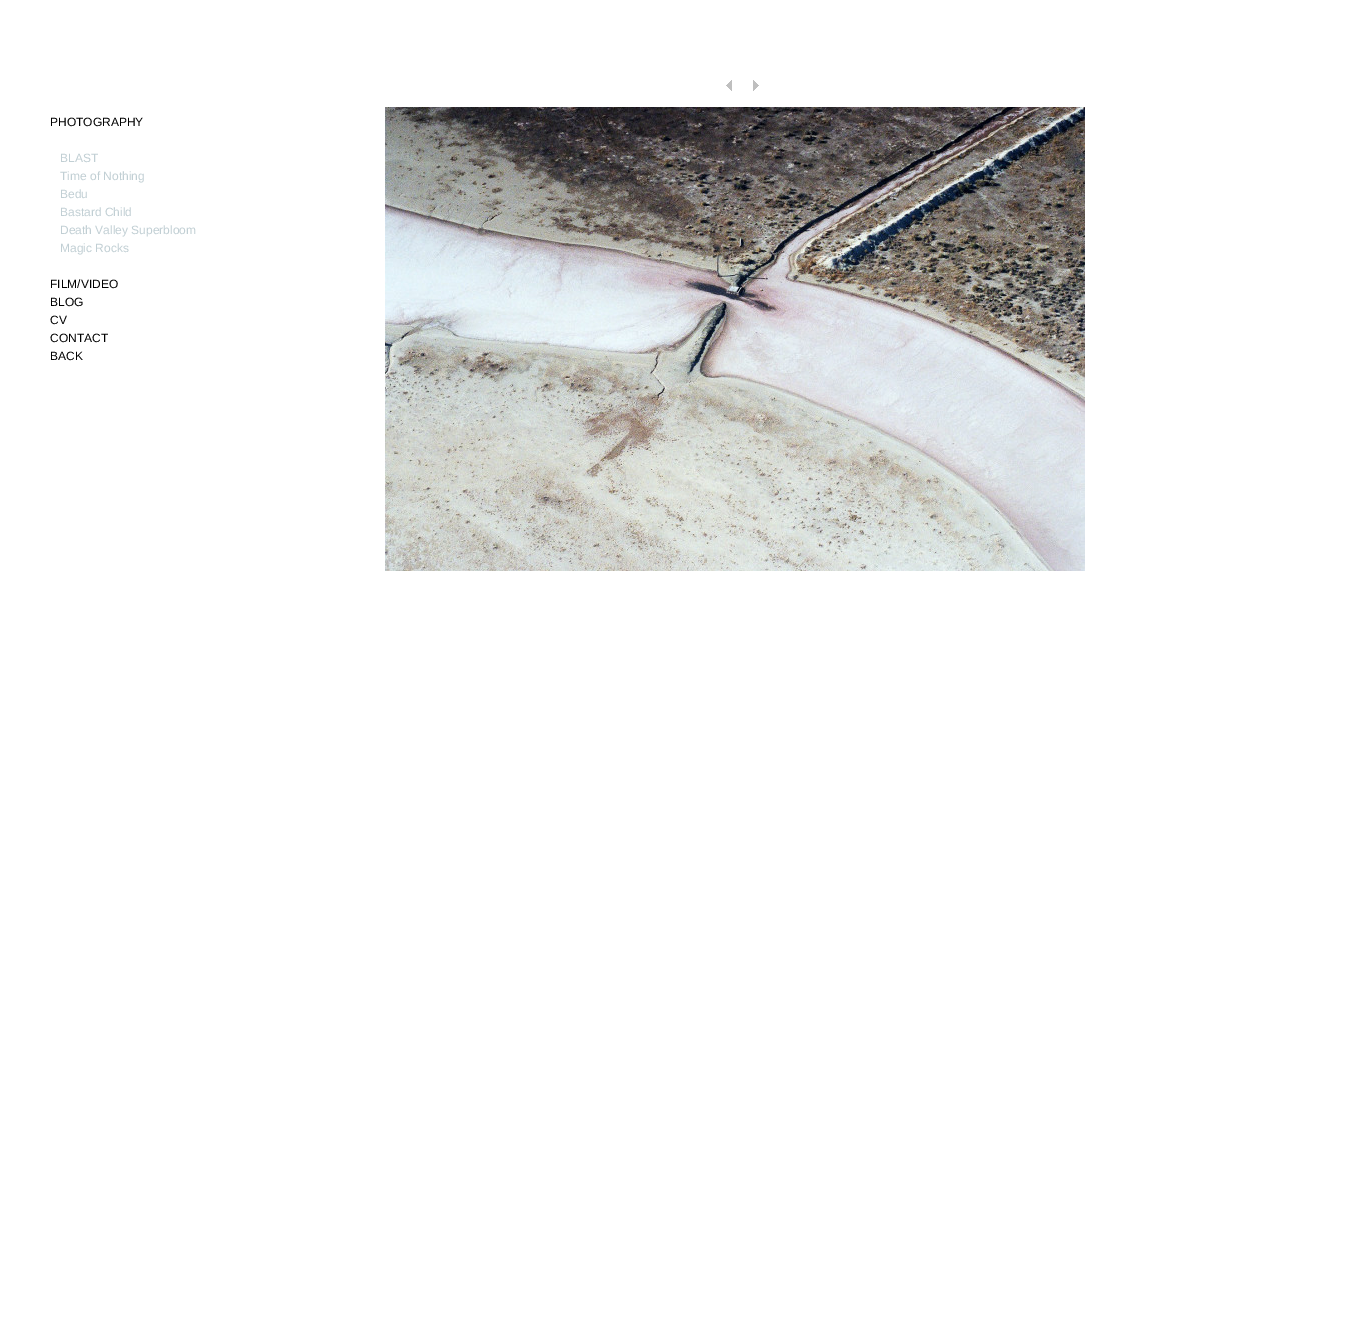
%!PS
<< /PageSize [1349 1322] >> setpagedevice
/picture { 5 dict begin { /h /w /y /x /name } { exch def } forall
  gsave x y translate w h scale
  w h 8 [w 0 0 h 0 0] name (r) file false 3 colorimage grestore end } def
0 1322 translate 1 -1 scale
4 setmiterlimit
1 setgray
0 0 1349 1322 rectfill
/LiberationSans-Regular [12 0 0 -12 0 0] selectfont
0 setgray
50 126 moveto (PHOTOGRAPHY) show
0.757 0.812 0.831 setrgbcolor
60 162 moveto (BLAST) show
60 180 moveto (Time of Nothing) show
60 198 moveto (Bedu) show
60 216 moveto (Bastard Child) show
60 234 moveto (Death Valley Superbloom) show
60 252 moveto (Magic Rocks) show
0 setgray
50 288 moveto (FILM/VIDEO) show
50 306 moveto (BLOG) show
50 324 moveto (CV) show
50 342 moveto (CONTACT) show
50 360 moveto (BACK) show
(img1.rgb) 726 80 6 11 picture
(img2.rgb) 753 80 6 11 picture
(img3.rgb) 385 107 700 464 picture
showpage
